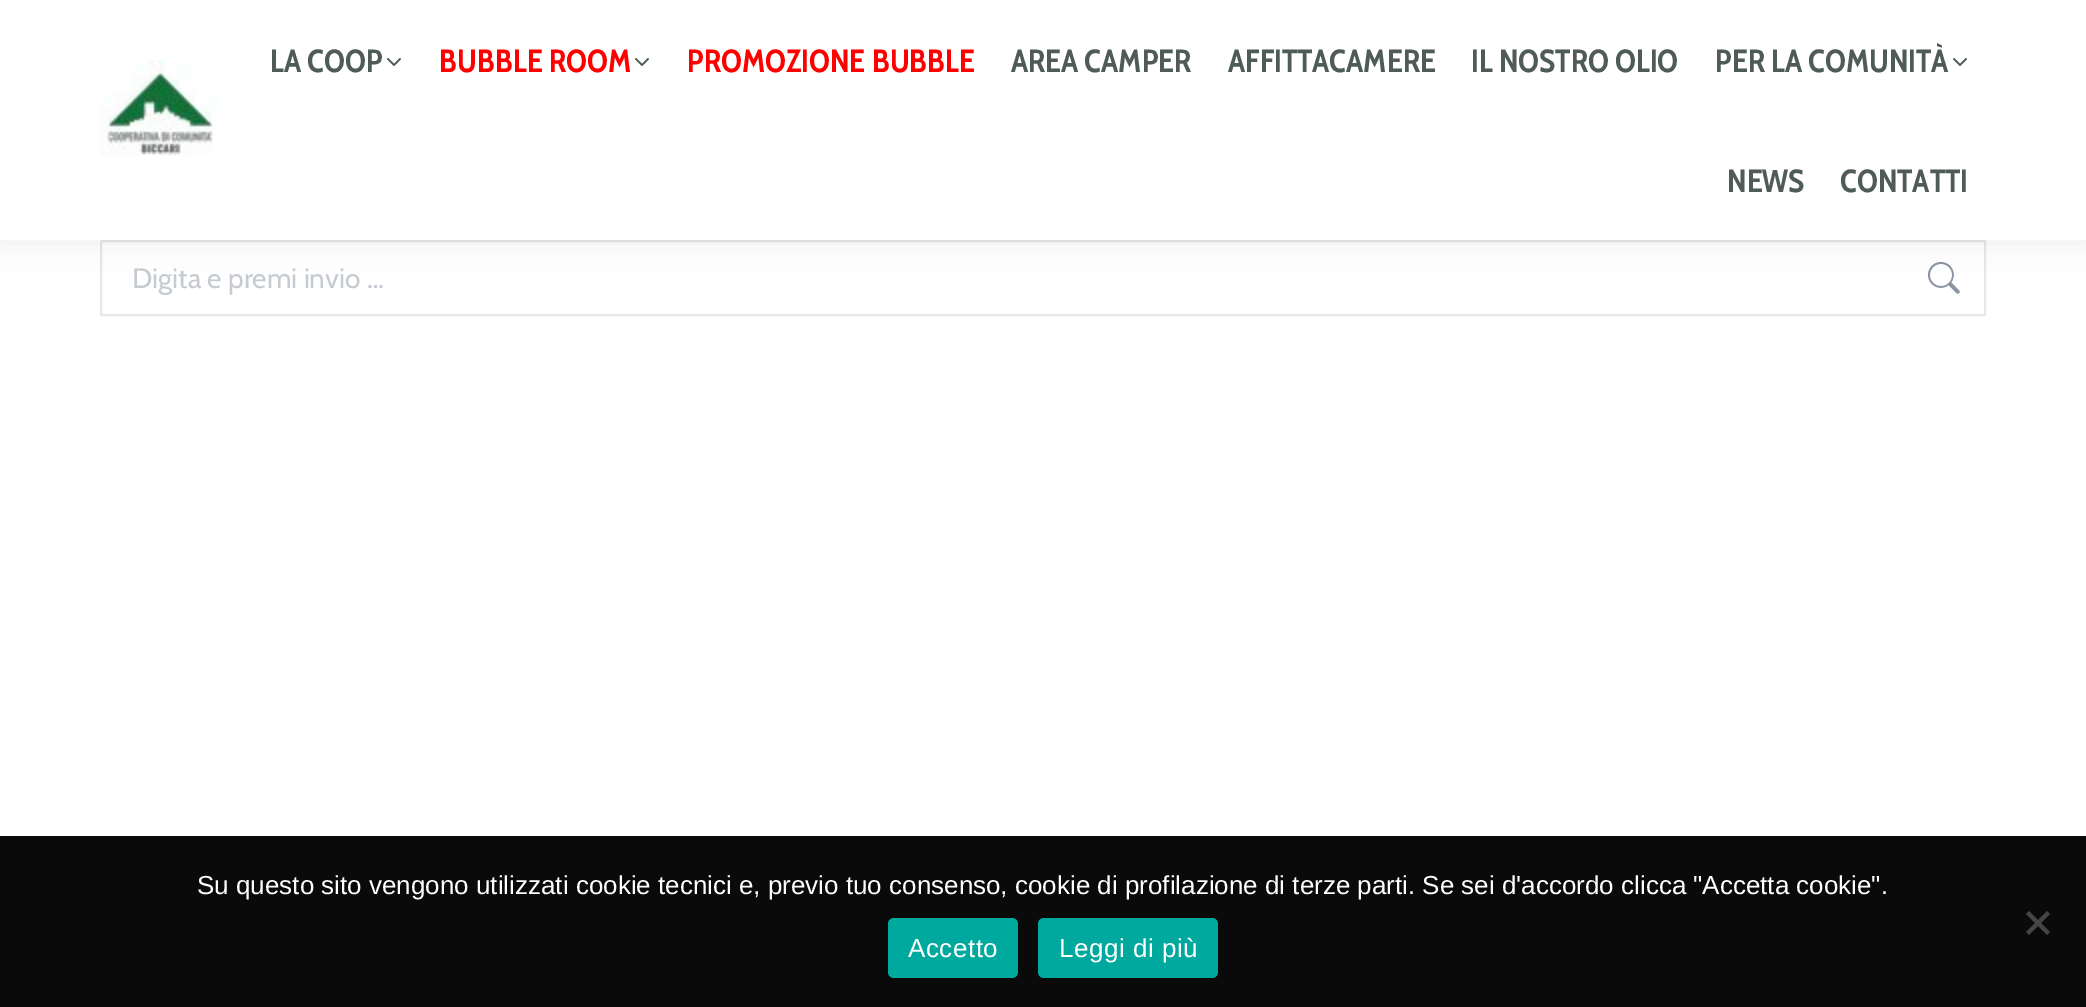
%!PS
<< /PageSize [2086 1007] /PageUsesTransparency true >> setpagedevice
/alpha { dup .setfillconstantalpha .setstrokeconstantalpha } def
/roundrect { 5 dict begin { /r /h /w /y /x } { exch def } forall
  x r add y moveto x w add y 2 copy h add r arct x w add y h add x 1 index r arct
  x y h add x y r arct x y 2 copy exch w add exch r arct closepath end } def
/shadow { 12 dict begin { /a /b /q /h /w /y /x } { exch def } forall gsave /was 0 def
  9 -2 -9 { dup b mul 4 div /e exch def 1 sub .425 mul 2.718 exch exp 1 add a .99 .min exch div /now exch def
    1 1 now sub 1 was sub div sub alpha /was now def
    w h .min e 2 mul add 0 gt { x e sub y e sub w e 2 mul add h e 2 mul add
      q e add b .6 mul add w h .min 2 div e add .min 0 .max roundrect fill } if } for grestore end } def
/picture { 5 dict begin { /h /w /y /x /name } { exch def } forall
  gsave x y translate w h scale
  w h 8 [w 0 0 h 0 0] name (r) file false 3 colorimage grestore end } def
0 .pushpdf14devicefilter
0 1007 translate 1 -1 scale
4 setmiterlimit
1 setgray
0 0 2086 1007 rectfill
0.906 setgray
2 setlinewidth
101 241 1884 74 1 roundrect stroke
(img3.rgb) 1928 262 32 32 picture
0 setgray
-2 -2 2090 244 0 15 0.07 shadow
1 setgray
0 0 2086 240 rectfill
(img1.rgb) 100 60 120 96 picture
/CabinCondensed-Bold [32 0 0 -32 0 0] selectfont
0.31 0.357 0.345 setrgbcolor
270 72 moveto (LA COOP) show
(img2.rgb) 387 58 14 8 picture
1 0 0 setrgbcolor
439 72 moveto (BUBBLE ROOM) show
(img2.rgb) 635 58 14 8 picture
687 72 moveto (PROMOZIONE BUBBLE) show
0.31 0.357 0.345 setrgbcolor
1011 72 moveto (AREA CAMPER) show
1228 72 moveto (AFFITTACAMERE) show
1471 72 moveto (IL NOSTRO OLIO) show
1715 72 moveto (PER LA COMUNITÀ) show
(img2.rgb) 1953 58 14 8 picture
1727 192 moveto (NEWS) show
1840 192 moveto (CONTATTI) show
/Cabin-Regular [28 0 0 -28 0 0] selectfont
0.776 0.792 0.82 setrgbcolor
132 288 moveto (Digita e premi invio …) show
0.039 setgray
0 836 2086 171 rectfill
/LiberationSans-Regular [26 0 0 -26 0 0] selectfont
1 setgray
197 894 moveto (Su questo sito vengono utilizzati cookie tecnici e, previo tuo consenso, cookie di profilazione di terze parti. Se sei d'accordo clicca "Accetta cookie".) show
0.271 setgray
newpath 2047 911 moveto 2050 914 lineto 2029 935 lineto 2026 932 lineto closepath fill
newpath 2026 914 moveto 2029 911 lineto 2050 932 lineto 2047 935 lineto closepath fill
0 0.663 0.616 setrgbcolor
888 918 130 60 6 roundrect fill
1 setgray
908 957 moveto 0.5 0 (Accetto) ashow
0 0.663 0.616 setrgbcolor
1038 918 180 60 6 roundrect fill
1 setgray
1059 957 moveto 0.5 0 (Leggi di più) ashow
.poppdf14devicefilter showpage
